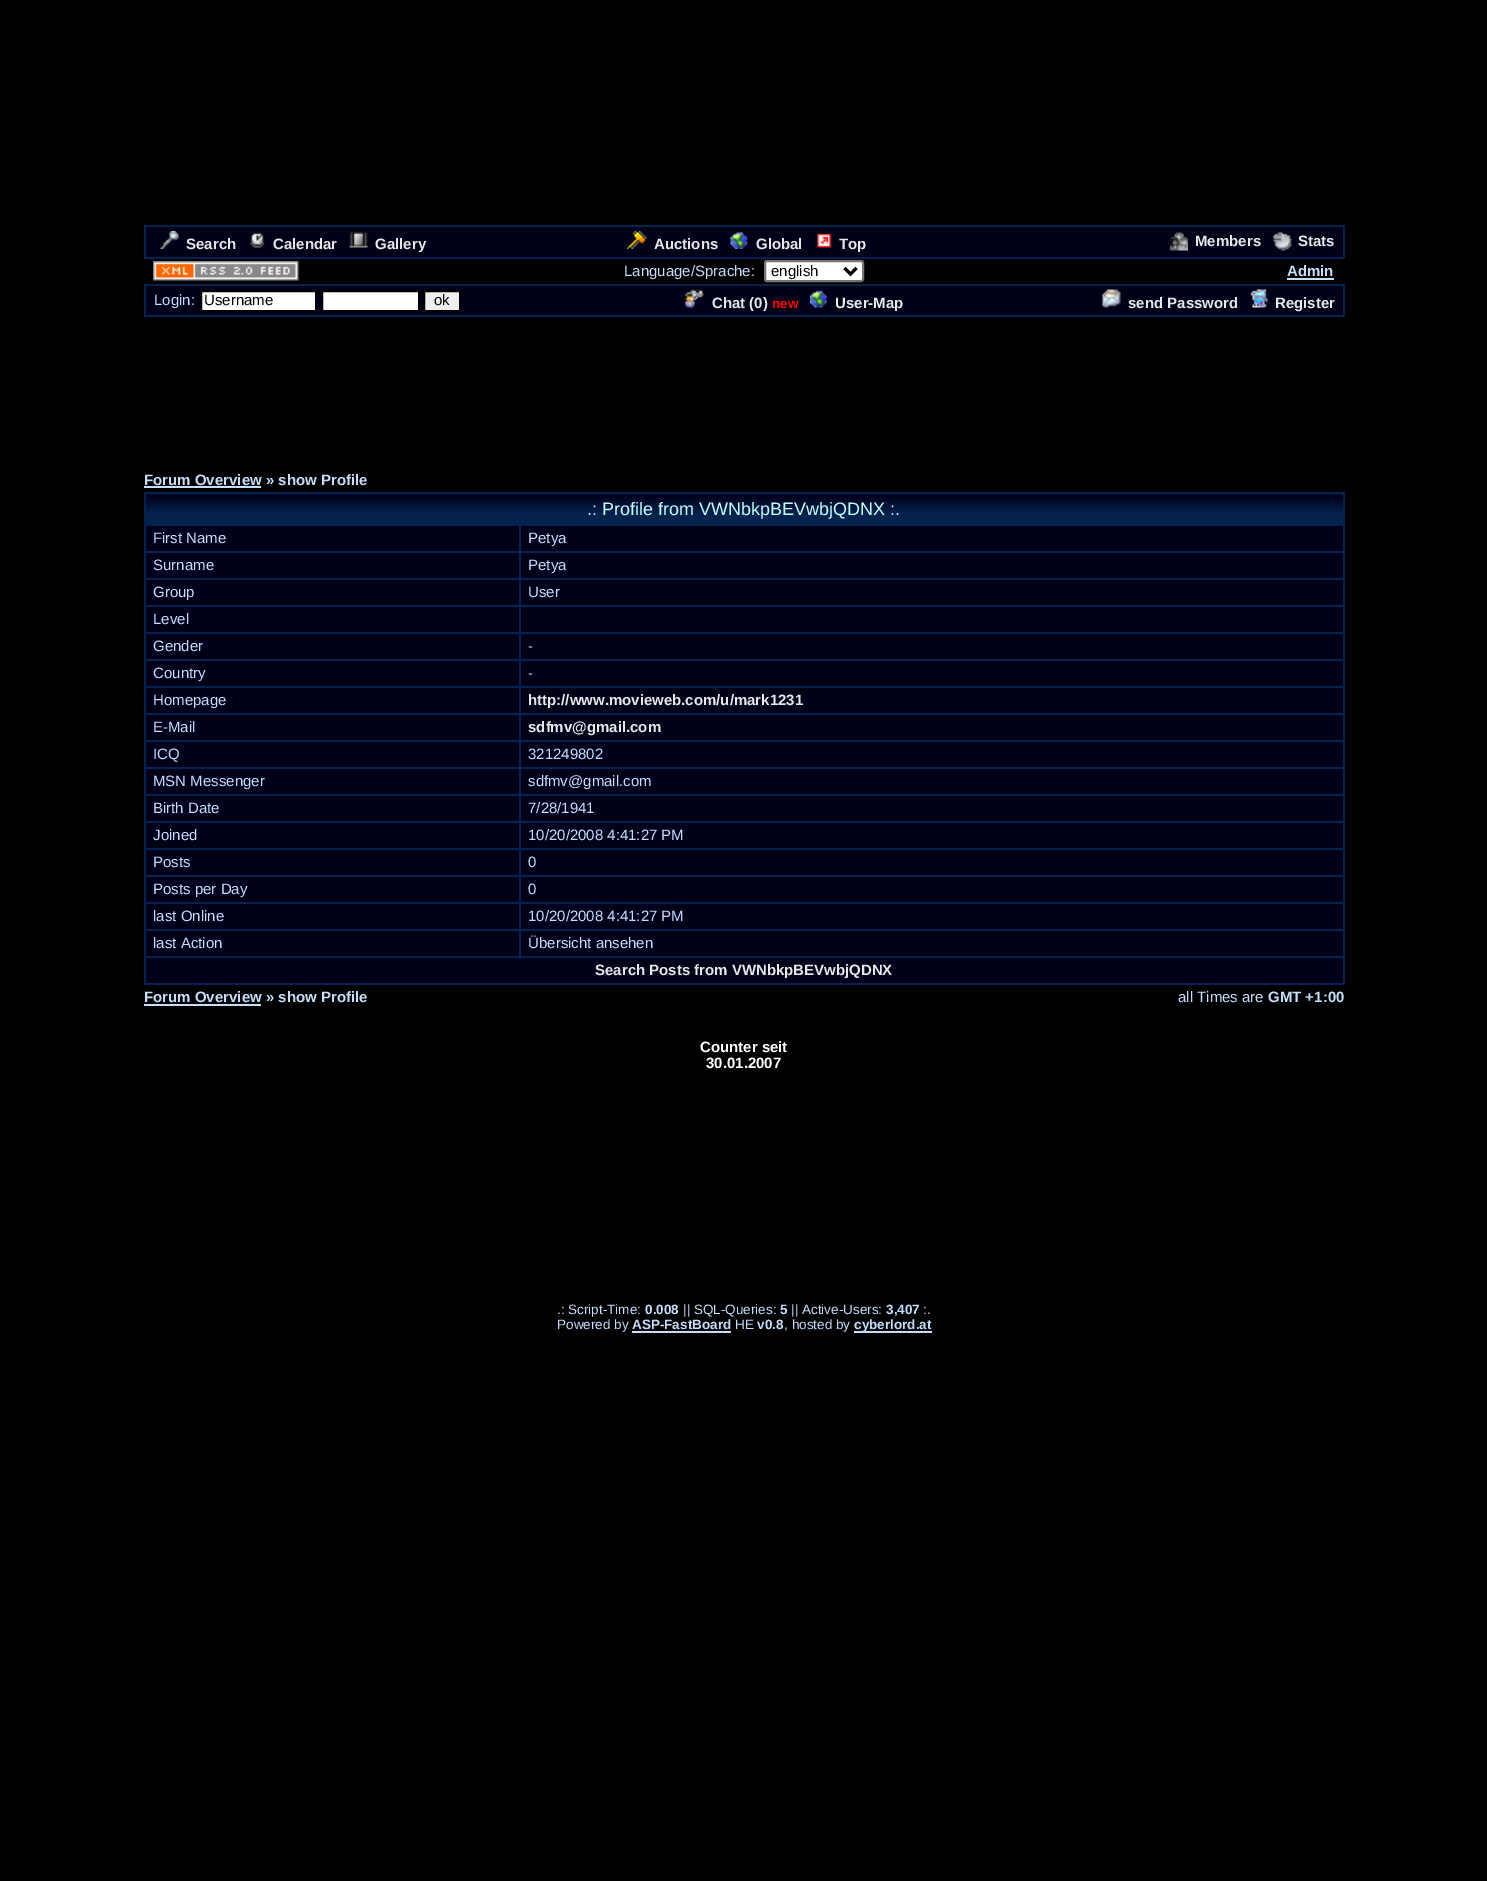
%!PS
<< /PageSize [1487 1881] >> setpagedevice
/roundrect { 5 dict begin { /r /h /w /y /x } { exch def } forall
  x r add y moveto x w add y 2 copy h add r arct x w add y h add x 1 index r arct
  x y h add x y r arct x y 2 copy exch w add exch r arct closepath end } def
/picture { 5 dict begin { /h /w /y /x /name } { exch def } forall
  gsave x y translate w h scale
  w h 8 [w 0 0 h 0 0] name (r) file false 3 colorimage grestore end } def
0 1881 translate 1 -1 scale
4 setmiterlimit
0 setgray
0 0 1487 1881 rectfill
0 0 0.098 setrgbcolor
146 227 1197 30 rectfill
0.008 0.137 0.314 setrgbcolor
144 225 1200 2 rectfill
1343 225 2 33 rectfill
144 257 1200 2 rectfill
144 225 2 33 rectfill
(img1.rgb) 160 231 19 18 picture
/LiberationSans-Bold [15 0 0 -15 0 0] selectfont
0.91 setgray
186 249 moveto (Search) show
(img2.rgb) 250 232 15 16 picture
273 249 moveto (Calendar) show
(img3.rgb) 349 232 19 16 picture
375 249 moveto (Gallery) show
(img4.rgb) 627 231 20 18 picture
654 249 moveto (Auctions) show
(img5.rgb) 730 232 18 17 picture
756 249 moveto (Global) show
(img6.rgb) 817 233 15 15 picture
839 249 moveto (Top) show
(img7.rgb) 1170 232 18 19 picture
1195 246 moveto (Members) show
(img8.rgb) 1273 232 19 19 picture
1298 246 moveto (Stats) show
(img9.rgb) 153 261 146 20 picture
/LiberationSans-Regular [15 0 0 -15 0 0] selectfont
0.773 0.871 0.984 setrgbcolor
624 276 moveto (Language/Sprache:) show
1 setgray
765 261 98 20 2 roundrect gsave fill grestore
0.463 setgray
2 setlinewidth
stroke
0 setgray
3 setlinewidth
newpath 844.5 268 moveto 850.5 274 lineto 856.5 268 lineto stroke
771 276 moveto (english) show
/LiberationSans-Bold [15 0 0 -15 0 0] selectfont
0.773 0.871 0.984 setrgbcolor
1287 276 moveto (Admin) show
1287 278 47 2 rectfill
0 0 0.098 setrgbcolor
146 286 1197 29 rectfill
0.008 0.137 0.314 setrgbcolor
144 284 1200 2 rectfill
1343 284 2 33 rectfill
144 315 1200 2 rectfill
144 284 2 33 rectfill
/LiberationSans-Regular [15 0 0 -15 0 0] selectfont
0.773 0.871 0.984 setrgbcolor
154 305 moveto (Login:) show
1 setgray
newpath 201 291 moveto 316 291 lineto 316 311 lineto 201 311 lineto closepath gsave fill grestore
0 setgray
2 setlinewidth
stroke
204 305 moveto (Username) show
1 setgray
newpath 322 291 moveto 419 291 lineto 419 311 lineto 322 311 lineto closepath gsave fill grestore
0 setgray
stroke
0.937 setgray
newpath 424 291 moveto 460 291 lineto 460 311 lineto 424 311 lineto closepath gsave fill grestore
0 setgray
stroke
434 305 moveto (ok) show
(img10.rgb) 685 289 19 19 picture
/LiberationSans-Bold [15 0 0 -15 0 0] selectfont
0.91 setgray
712 308 moveto (Chat \(0\)) show
/LiberationSans-Bold [13.5 0 0 -13.5 0 0] selectfont
1 0 0 setrgbcolor
772 308 moveto (new) show
(img11.rgb) 810 290 17 18 picture
/LiberationSans-Bold [15 0 0 -15 0 0] selectfont
0.91 setgray
835 308 moveto (User-Map) show
(img12.rgb) 1102 289 19 19 picture
1128 308 moveto (send Password) show
(img13.rgb) 1250 289 18 19 picture
1275 308 moveto (Register) show
0.773 0.871 0.984 setrgbcolor
144 485 moveto (Forum Overview » show Profile) show
144 486 117 2 rectfill
0 0 0.098 setrgbcolor
146 526 1197 457 rectfill
(img14.rgb) 146 494 1197 30 picture
0.008 0.137 0.314 setrgbcolor
144 492 1200 2 rectfill
519 524 825 2 rectfill
519 551 825 2 rectfill
519 578 825 2 rectfill
519 605 825 2 rectfill
519 632 825 2 rectfill
519 659 825 2 rectfill
519 686 825 2 rectfill
519 713 825 2 rectfill
519 740 825 2 rectfill
519 767 825 2 rectfill
519 794 825 2 rectfill
519 821 825 2 rectfill
519 848 825 2 rectfill
519 875 825 2 rectfill
519 902 825 2 rectfill
519 929 825 2 rectfill
144 956 1200 2 rectfill
1343 956 2 28 rectfill
1343 929 2 28 rectfill
1343 902 2 28 rectfill
1343 875 2 28 rectfill
1343 848 2 28 rectfill
1343 821 2 28 rectfill
1343 794 2 28 rectfill
1343 767 2 28 rectfill
1343 740 2 28 rectfill
1343 713 2 28 rectfill
1343 686 2 28 rectfill
1343 659 2 28 rectfill
1343 632 2 28 rectfill
1343 605 2 28 rectfill
1343 578 2 28 rectfill
1343 551 2 28 rectfill
1343 524 2 28 rectfill
1343 492 2 33 rectfill
519 929 2 28 rectfill
144 929 377 2 rectfill
519 902 2 28 rectfill
144 902 377 2 rectfill
519 875 2 28 rectfill
144 875 377 2 rectfill
519 848 2 28 rectfill
144 848 377 2 rectfill
519 821 2 28 rectfill
144 821 377 2 rectfill
519 794 2 28 rectfill
144 794 377 2 rectfill
519 767 2 28 rectfill
144 767 377 2 rectfill
519 740 2 28 rectfill
144 740 377 2 rectfill
519 713 2 28 rectfill
144 713 377 2 rectfill
519 686 2 28 rectfill
144 686 377 2 rectfill
519 659 2 28 rectfill
144 659 377 2 rectfill
519 632 2 28 rectfill
144 632 377 2 rectfill
519 605 2 28 rectfill
144 605 377 2 rectfill
519 578 2 28 rectfill
144 578 377 2 rectfill
519 551 2 28 rectfill
144 551 377 2 rectfill
519 524 2 28 rectfill
144 524 377 2 rectfill
144 983 1200 2 rectfill
144 956 2 28 rectfill
144 929 2 28 rectfill
144 902 2 28 rectfill
144 875 2 28 rectfill
144 848 2 28 rectfill
144 821 2 28 rectfill
144 794 2 28 rectfill
144 767 2 28 rectfill
144 740 2 28 rectfill
144 713 2 28 rectfill
144 686 2 28 rectfill
144 659 2 28 rectfill
144 632 2 28 rectfill
144 605 2 28 rectfill
144 578 2 28 rectfill
144 551 2 28 rectfill
144 524 2 28 rectfill
144 492 2 33 rectfill
/LiberationSans-Regular [18 0 0 -18 0 0] selectfont
0.753 1 1 setrgbcolor
587 515 moveto (.: Profile from VWNbkpBEVwbjQDNX :.) show
/LiberationSans-Regular [15 0 0 -15 0 0] selectfont
0.773 0.871 0.984 setrgbcolor
153 543 moveto (First Name) show
528 543 moveto (Petya) show
153 570 moveto (Surname) show
528 570 moveto (Petya) show
153 597 moveto (Group) show
528 597 moveto (User) show
153 624 moveto (Level) show
153 651 moveto (Gender) show
528 651 moveto (-) show
153 678 moveto (Country) show
528 678 moveto (-) show
153 705 moveto (Homepage) show
/LiberationSans-Bold [15 0 0 -15 0 0] selectfont
0.91 setgray
528 705 moveto (http://www.movieweb.com/u/mark1231) show
/LiberationSans-Regular [15 0 0 -15 0 0] selectfont
0.773 0.871 0.984 setrgbcolor
153 732 moveto (E-Mail) show
/LiberationSans-Bold [15 0 0 -15 0 0] selectfont
0.91 setgray
528 732 moveto (sdfmv@gmail.com) show
/LiberationSans-Regular [15 0 0 -15 0 0] selectfont
0.773 0.871 0.984 setrgbcolor
153 759 moveto (ICQ) show
528 759 moveto (321249802) show
153 786 moveto (MSN Messenger) show
528 786 moveto (sdfmv@gmail.com) show
153 813 moveto (Birth Date) show
528 813 moveto (7/28/1941) show
153 840 moveto (Joined) show
528 840 moveto (10/20/2008 4:41:27 PM) show
153 867 moveto (Posts) show
528 867 moveto (0) show
153 894 moveto (Posts per Day) show
528 894 moveto (0) show
153 921 moveto (last Online) show
528 921 moveto (10/20/2008 4:41:27 PM) show
153 948 moveto (last Action) show
528 948 moveto (Übersicht ansehen) show
/LiberationSans-Bold [15 0 0 -15 0 0] selectfont
0.91 setgray
595 975 moveto (Search Posts from VWNbkpBEVwbjQDNX) show
0.773 0.871 0.984 setrgbcolor
144 1002 moveto (Forum Overview » show Profile) show
144 1004 117 2 rectfill
/LiberationSans-Regular [15 0 0 -15 0 0] selectfont
1178 1002 moveto (all Times are) show
/LiberationSans-Bold [15 0 0 -15 0 0] selectfont
1268 1002 moveto (GMT +1:00) show
1 setgray
700 1052 moveto (Counter seit) show
706 1068 moveto (30.01.2007) show
/LiberationSans-Regular [13.5 0 0 -13.5 0 0] selectfont
0.773 0.871 0.984 setrgbcolor
557 1314 moveto (.: Script-Time:) show
/LiberationSans-Bold [13.5 0 0 -13.5 0 0] selectfont
645 1314 moveto (0.008) show
/LiberationSans-Regular [13.5 0 0 -13.5 0 0] selectfont
683 1314 moveto (|| SQL-Queries:) show
/LiberationSans-Bold [13.5 0 0 -13.5 0 0] selectfont
780 1314 moveto (5) show
/LiberationSans-Regular [13.5 0 0 -13.5 0 0] selectfont
791 1314 moveto (|| Active-Users:) show
/LiberationSans-Bold [13.5 0 0 -13.5 0 0] selectfont
886 1314 moveto (3,407) show
/LiberationSans-Regular [13.5 0 0 -13.5 0 0] selectfont
923 1314 moveto (:.) show
557 1329 moveto (Powered by) show
/LiberationSans-Bold [13.5 0 0 -13.5 0 0] selectfont
632 1329 moveto (ASP-FastBoard) show
632 1331 99 2 rectfill
/LiberationSans-Regular [13.5 0 0 -13.5 0 0] selectfont
735 1329 moveto (HE) show
/LiberationSans-Bold [13.5 0 0 -13.5 0 0] selectfont
757 1329 moveto (v0.8) show
/LiberationSans-Regular [13.5 0 0 -13.5 0 0] selectfont
784 1329 moveto (, hosted by) show
854 1331 78 2 rectfill
/LiberationSans-Bold [13.5 0 0 -13.5 0 0] selectfont
854 1329 moveto (cyberlord.at) show
showpage
